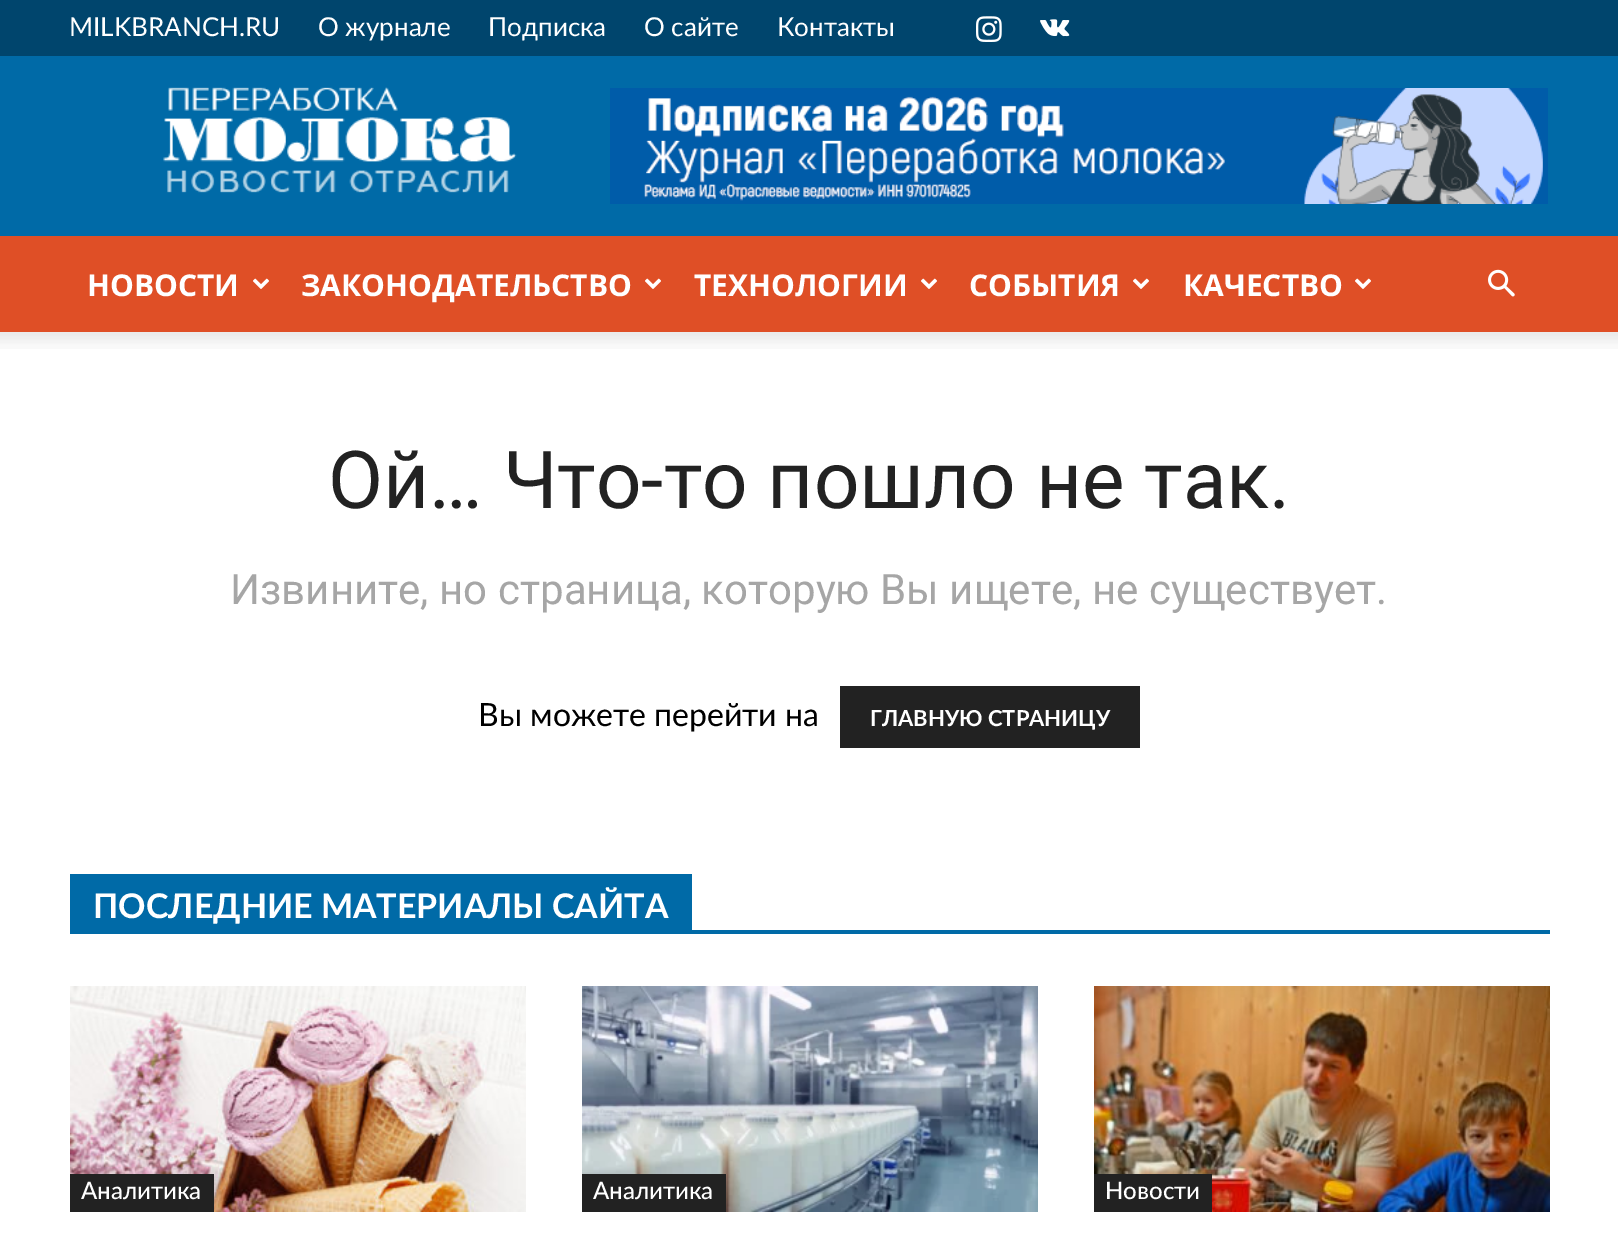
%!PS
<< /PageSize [1618 1244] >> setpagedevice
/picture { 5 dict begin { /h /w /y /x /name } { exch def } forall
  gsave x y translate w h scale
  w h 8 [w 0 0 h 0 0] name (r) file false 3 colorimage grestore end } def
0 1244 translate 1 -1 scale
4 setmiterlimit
1 setgray
0 0 1618 1244 rectfill
0 0.271 0.427 setrgbcolor
0 0 1618 56 rectfill
/Lato-Regular [26 0 0 -26 0 0] selectfont
1 setgray
69 36 moveto (MILKBRANCH.RU) show
318 36 moveto (О журнале) show
488 36 moveto (Подписка) show
644 36 moveto (О сайте) show
777 36 moveto (Контакты) show
(img1.rgb) 976 16 26 26 picture
(img2.rgb) 1040 19 30 18 picture
0 0.416 0.655 setrgbcolor
0 56 1618 180 rectfill
(img3.rgb) 163 87 354 106 picture
(img4.rgb) 610 88 938 116 picture
0.875 0.31 0.149 setrgbcolor
0 236 1618 96 rectfill
/OpenSans-Bold [30 0 0 -30 0 0] selectfont
1 setgray
87 296 moveto (НОВОСТИ) show
(img5.rgb) 253 278 16 11 picture
301 296 moveto (ЗАКОНОДАТЕЛЬСТВО) show
(img5.rgb) 645 278 16 11 picture
694 296 moveto (ТЕХНОЛОГИИ) show
(img5.rgb) 921 278 16 11 picture
969 296 moveto (СОБЫТИЯ) show
(img5.rgb) 1133 278 16 11 picture
1183 296 moveto (КАЧЕСТВО) show
(img5.rgb) 1355 278 16 11 picture
(img6.rgb) 1488 269 27 28 picture
(img7.rgb) 0 332 1618 17 picture
/Roboto-Regular [80 0 0 -80 0 0] selectfont
0.133 setgray
328 508 moveto (Ой… Что-то пошло не так.) show
/Roboto-Regular [42 0 0 -42 0 0] selectfont
0.651 setgray
230 604 moveto (Извините, но страница, которую Вы ищете, не существует.) show
/Lato-Regular [32 0 0 -32 0 0] selectfont
0 setgray
478 726 moveto (Вы можете перейти на) show
0.133 setgray
840 686 300 62 rectfill
/Lato-Bold [22 0 0 -22 0 0] selectfont
1 setgray
870 726 moveto (ГЛАВНУЮ СТРАНИЦУ) show
0 0.416 0.655 setrgbcolor
70 930 1480 4 rectfill
70 874 622 56 rectfill
/Lato-Bold [34 0 0 -34 0 0] selectfont
1 setgray
93 918 moveto (ПОСЛЕДНИЕ МАТЕРИАЛЫ САЙТА) show
(img8.rgb) 70 986 456 226 picture
0.133 setgray
70 1174 144 38 rectfill
/Lato-Medium [24 0 0 -24 0 0] selectfont
1 setgray
81 1199 moveto (Аналитика) show
(img9.rgb) 582 986 456 226 picture
0.133 setgray
582 1174 144 38 rectfill
1 setgray
593 1199 moveto (Аналитика) show
(img10.rgb) 1094 986 456 226 picture
0.133 setgray
1094 1174 118 38 rectfill
1 setgray
1105 1199 moveto (Новости) show
showpage
